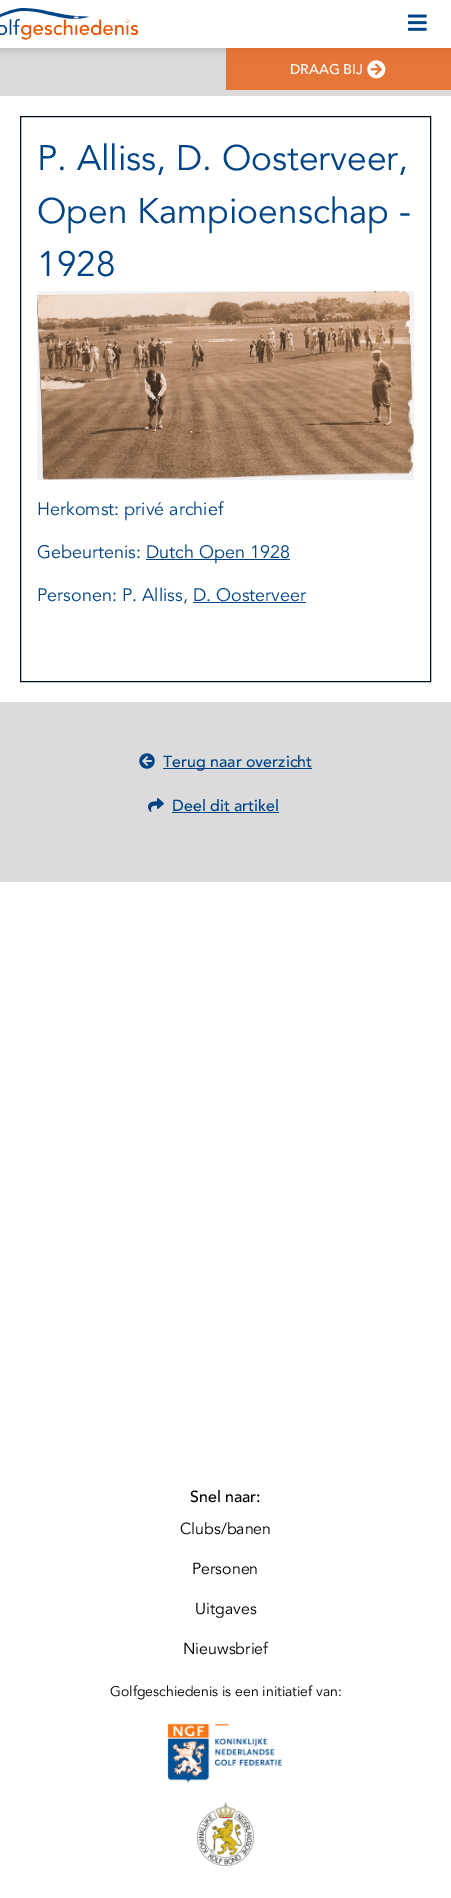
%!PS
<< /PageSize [451 1898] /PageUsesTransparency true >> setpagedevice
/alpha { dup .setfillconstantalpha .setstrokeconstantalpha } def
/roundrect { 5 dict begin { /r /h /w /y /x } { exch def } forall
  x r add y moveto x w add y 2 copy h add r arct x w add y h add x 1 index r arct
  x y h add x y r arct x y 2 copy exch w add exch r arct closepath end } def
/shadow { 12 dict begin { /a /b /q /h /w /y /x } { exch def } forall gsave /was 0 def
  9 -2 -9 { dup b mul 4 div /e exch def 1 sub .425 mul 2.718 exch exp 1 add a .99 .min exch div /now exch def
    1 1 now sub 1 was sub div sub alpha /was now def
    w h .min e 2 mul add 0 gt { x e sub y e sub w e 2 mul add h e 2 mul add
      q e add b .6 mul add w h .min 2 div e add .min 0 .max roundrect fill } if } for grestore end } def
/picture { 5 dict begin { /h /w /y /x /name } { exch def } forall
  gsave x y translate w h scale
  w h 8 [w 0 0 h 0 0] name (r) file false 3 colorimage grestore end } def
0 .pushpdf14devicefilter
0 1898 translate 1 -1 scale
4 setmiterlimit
1 setgray
0 0 451 1898 rectfill
0.859 setgray
0 48 451 834 rectfill
0 setgray
0 2 451 48 0 5 0.16 shadow
1 setgray
0 0 451 48 rectfill
(img1.rgb) 0 8 138 32 picture
(img2.rgb) 408 14 19 17 picture
0.75 alpha
0.91 0.329 0 setrgbcolor
226 48 225 42 rectfill
/Avenir-Medium [14 0 0 -14 0 0] selectfont
1 alpha
1 setgray
290 74 moveto (DRAAG BIJ) show
(img3.rgb) 367 60 19 19 picture
0 96 451 606 rectfill
0 0.051 0.122 setrgbcolor
20.5 116.5 410 565 rectstroke
/Avenir-Regular [35.25 0 0 -35.25 0 0] selectfont
0 0.267 0.529 setrgbcolor
37 170 moveto (P. Alliss, D. Oosterveer,) show
37 223 moveto (Open Kampioenschap -) show
37 276 moveto (1928) show
(img4.rgb) 37 291 377 189 picture
/Avenir-Regular [18 0 0 -18 0 0] selectfont
37 515 moveto (Herkomst: privé archief) show
37 558 moveto (Gebeurtenis:) show
146 559 144 1 rectfill
146 558 moveto (Dutch Open 1928) show
37 601 moveto (Personen: P. Alliss, D. Oosterveer) show
193 602 113 1 rectfill
(img5.rgb) 139 753 16 16 picture
163 768 149 1 rectfill
/Avenir-Medium [16 0 0 -16 0 0] selectfont
163 767 moveto (Terug naar overzicht) show
(img6.rgb) 148 798 16 14 picture
172 811 moveto (Deel dit artikel) show
172 812 107 1 rectfill
0 setgray
190 1502 moveto (Snel naar:) show
/Avenir-Regular [16 0 0 -16 0 0] selectfont
180 1534 moveto (Clubs/banen) show
192 1574 moveto (Personen) show
195 1614 moveto (Uitgaves) show
183 1654 moveto (Nieuwsbrief) show
/Avenir-Regular [14 0 0 -14 0 0] selectfont
110 1696 moveto (Golfgeschiedenis is een initiatief van:) show
(img7.rgb) 167 1723 116 60 picture
(img8.rgb) 197 1802 57 64 picture
.poppdf14devicefilter showpage
